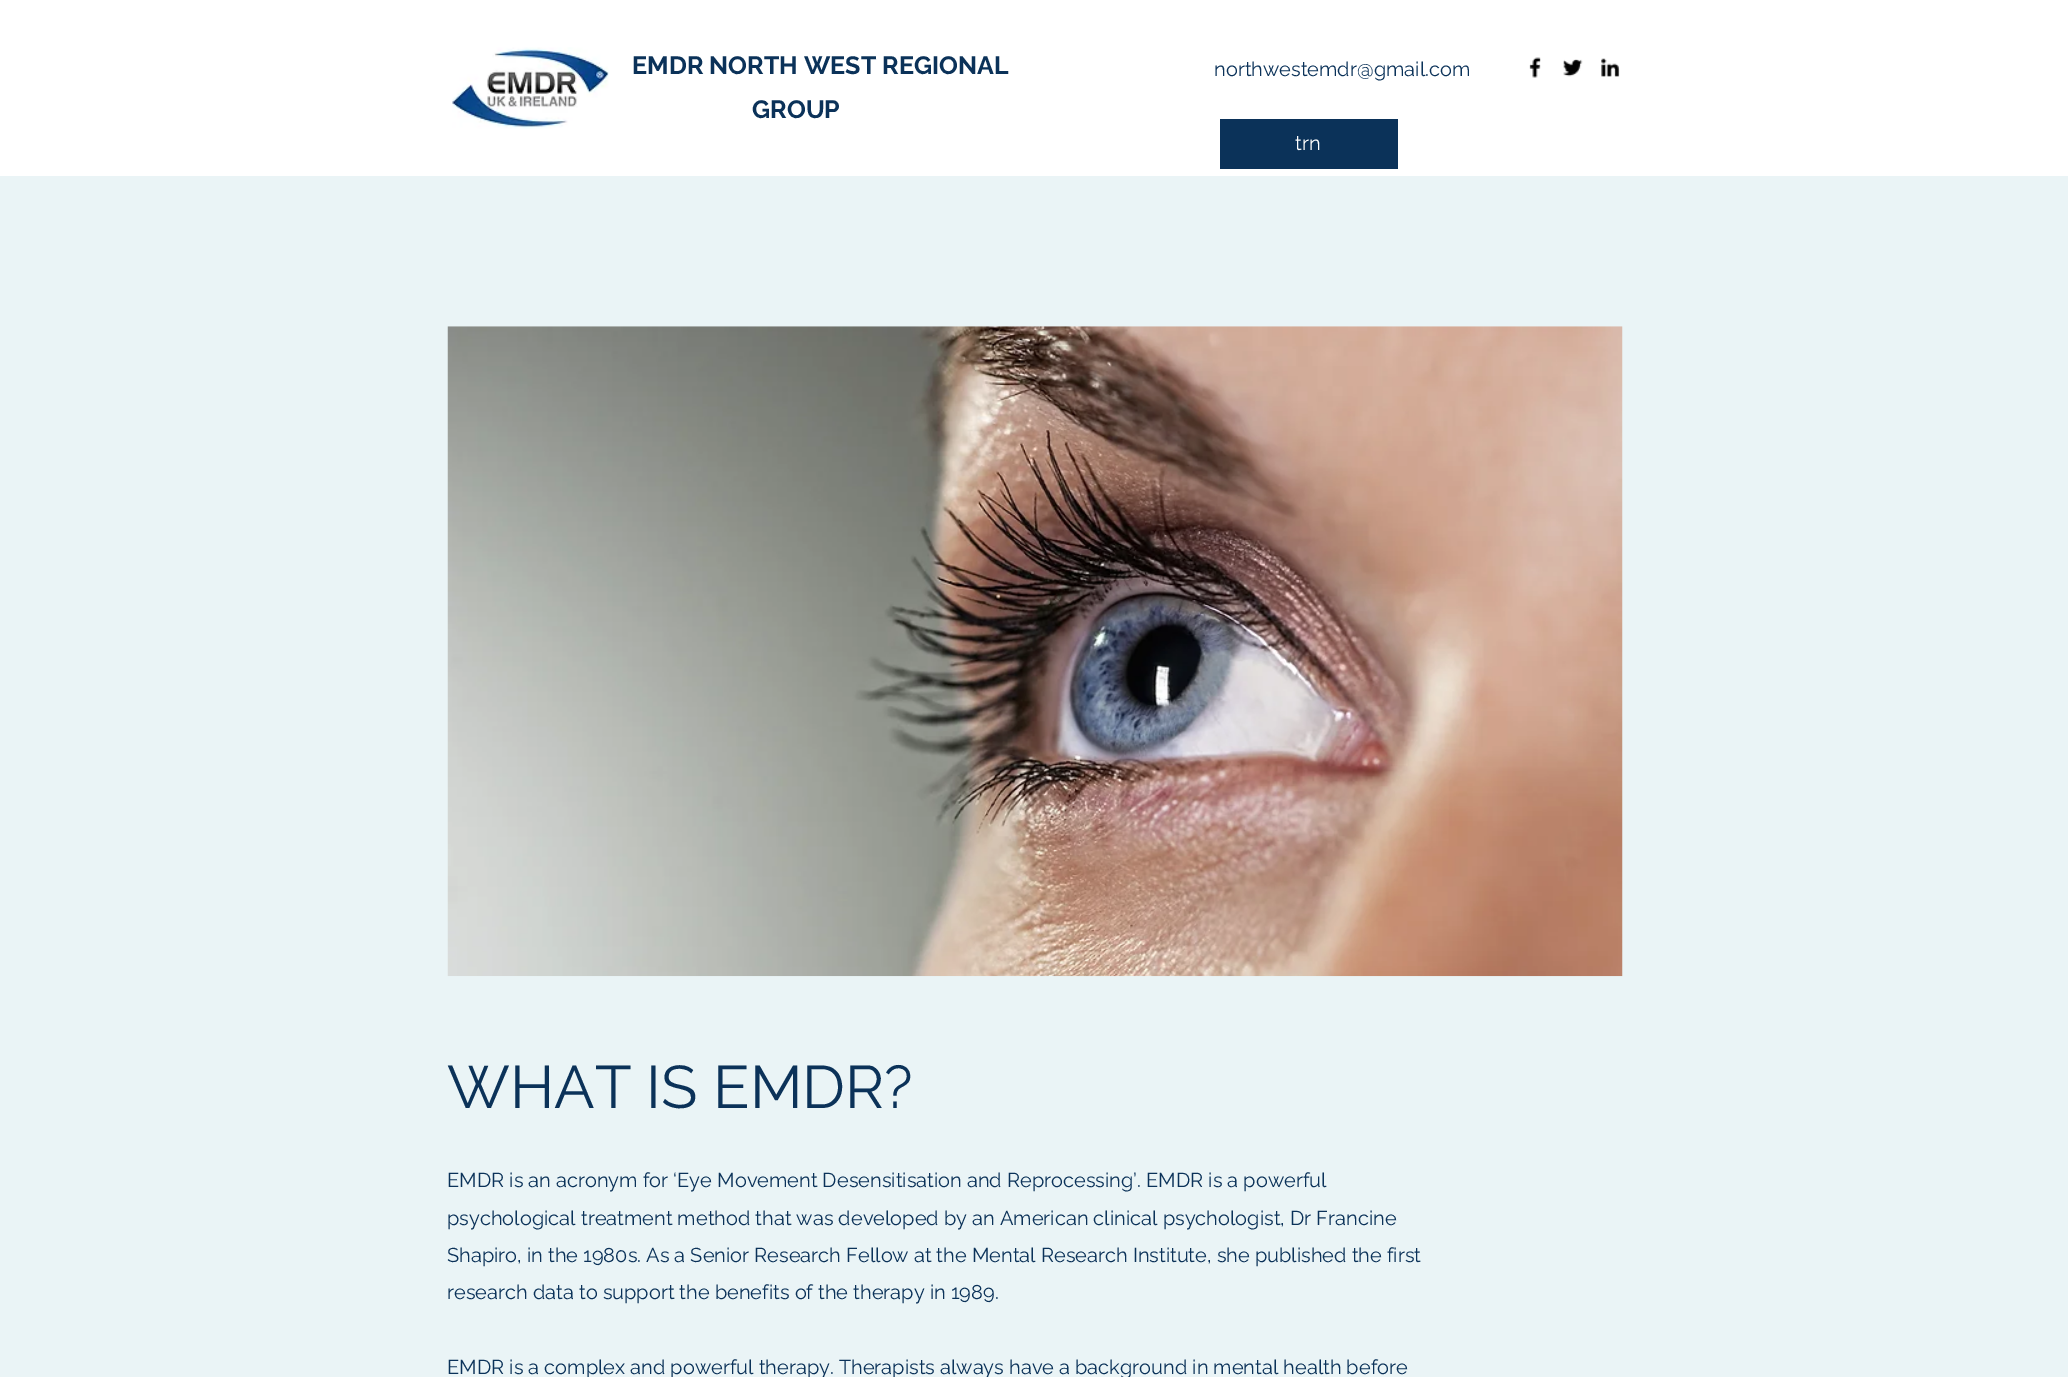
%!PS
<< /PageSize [2068 1377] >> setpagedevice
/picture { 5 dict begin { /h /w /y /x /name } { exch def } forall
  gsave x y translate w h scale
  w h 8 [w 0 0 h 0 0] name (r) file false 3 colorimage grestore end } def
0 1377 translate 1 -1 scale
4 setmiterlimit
1 setgray
0 0 2068 1377 rectfill
(img1.rgb) 452 47 157 82 picture
/Raleway-Bold [25 0 0 -25 0 0] selectfont
0.043 0.196 0.349 setrgbcolor
632 74 moveto (EMDR NORTH WEST REGIONAL) show
752 118 moveto (GROUP) show
/Raleway-Regular [20 0 0 -20 0 0] selectfont
1214 76 moveto (northwestemdr@gmail.com) show
(img2.rgb) 1529 57 12 21 picture
(img3.rgb) 1563 59 20 18 picture
(img4.rgb) 1601 58 19 19 picture
1220 119 178 50 rectfill
1 setgray
1295 150 moveto (trn) show
0.918 0.957 0.965 setrgbcolor
0 176 2068 1201 rectfill
(img5.rgb) 447 326 1176 651 picture
/Raleway-Regular [60 0 0 -60 0 0] selectfont
0.043 0.196 0.349 setrgbcolor
447 1108 moveto (WHAT IS EMDR?) show
/Raleway-Regular [20 0 0 -20 0 0] selectfont
447 1187 moveto (EMDR is an acronym for ‘Eye Movement Desensitisation and Reprocessing’. EMDR is a powerful) show
447 1225 moveto (psychological treatment method that was developed by an American clinical psychologist, Dr Francine) show
447 1262 moveto (Shapiro, in the 1980s. As a Senior Research Fellow at the Mental Research Institute, she published the first) show
447 1299 moveto (research data to support the benefits of the therapy in 1989.) show
447 1374 moveto (EMDR is a complex and powerful therapy. Therapists always have a background in mental health before) show
showpage
